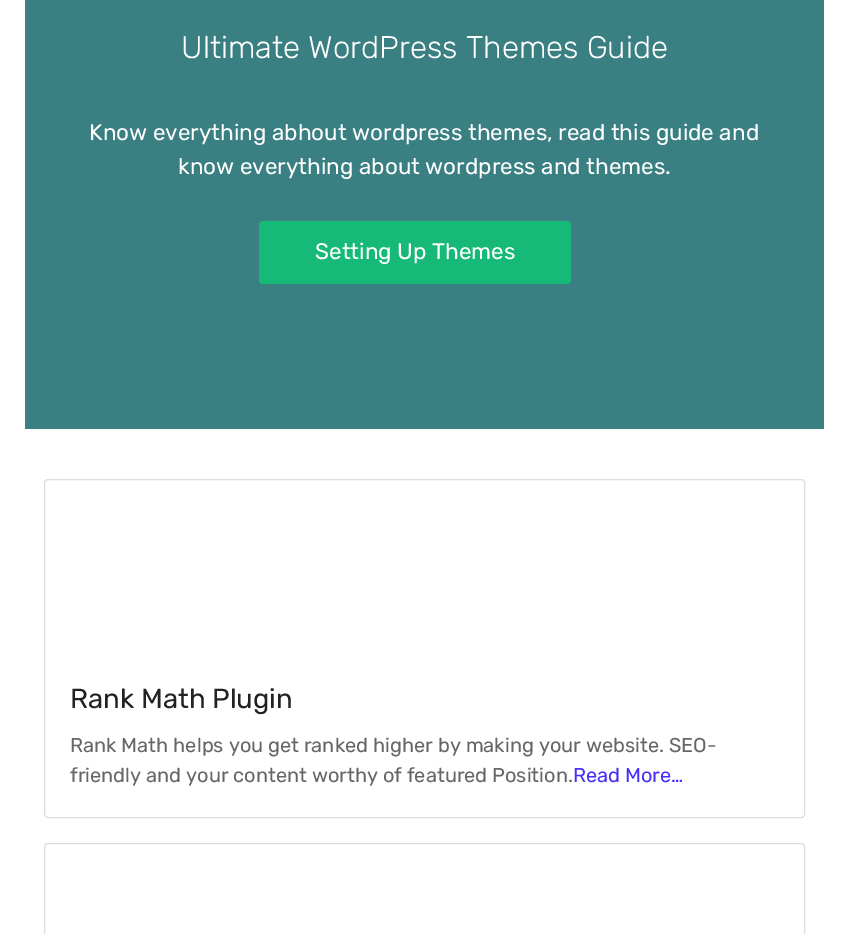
%!PS
<< /PageSize [848 934] >> setpagedevice
/roundrect { 5 dict begin { /r /h /w /y /x } { exch def } forall
  x r add y moveto x w add y 2 copy h add r arct x w add y h add x 1 index r arct
  x y h add x y r arct x y 2 copy exch w add exch r arct closepath end } def
0 934 translate 1 -1 scale
4 setmiterlimit
1 setgray
0 0 848 934 rectfill
0.227 0.498 0.51 setrgbcolor
25 0 799 429 rectfill
/Rubik-Light [31.25 0 0 -31.25 0 0] selectfont
1 setgray
181 58 moveto (Ultimate WordPress Themes Guide) show
/Rubik-Regular [22.5 0 0 -22.5 0 0] selectfont
89 140 moveto (Know everything abhout wordpress themes, read this guide and) show
178 174 moveto (know everything about wordpress and themes.) show
0.09 0.725 0.471 setrgbcolor
259 221 312 63 4 roundrect fill
1 setgray
315 259 moveto (Setting Up Themes) show
0.867 setgray
44.5 479.5 760 338 3.5 roundrect stroke
/Rubik-Regular [27.5 0 0 -27.5 0 0] selectfont
0.133 setgray
70 708 moveto (Rank Math Plugin) show
/Rubik-Regular [20 0 0 -20 0 0] selectfont
0.4 setgray
70 752 moveto (Rank Math helps you get ranked higher by making your website. SEO-) show
70 782 moveto (friendly and your content worthy of featured Position.) show
0.282 0.184 0.969 setrgbcolor
573 782 moveto (Read More…) show
0.867 setgray
44.5 843.5 760 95 3.5 roundrect stroke
showpage
